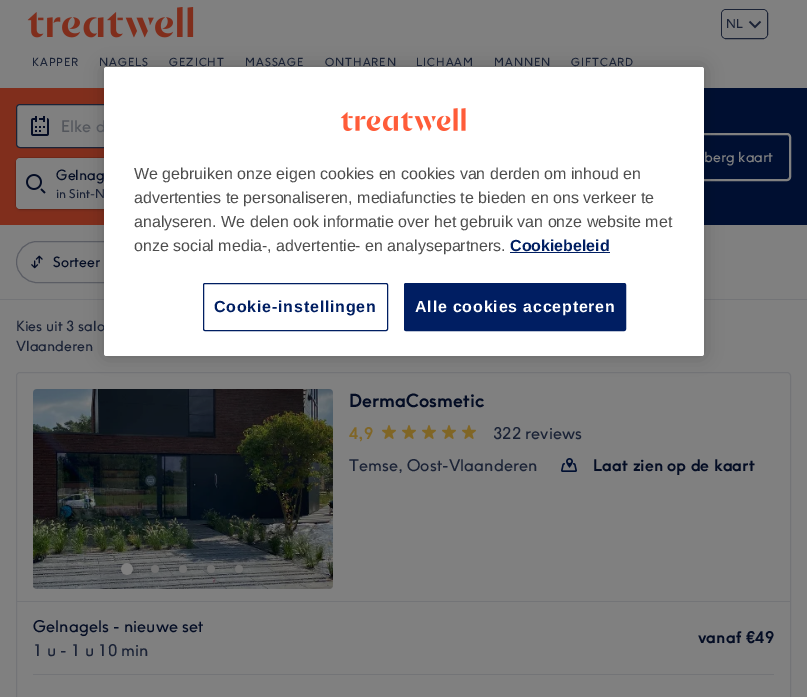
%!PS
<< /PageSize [807 697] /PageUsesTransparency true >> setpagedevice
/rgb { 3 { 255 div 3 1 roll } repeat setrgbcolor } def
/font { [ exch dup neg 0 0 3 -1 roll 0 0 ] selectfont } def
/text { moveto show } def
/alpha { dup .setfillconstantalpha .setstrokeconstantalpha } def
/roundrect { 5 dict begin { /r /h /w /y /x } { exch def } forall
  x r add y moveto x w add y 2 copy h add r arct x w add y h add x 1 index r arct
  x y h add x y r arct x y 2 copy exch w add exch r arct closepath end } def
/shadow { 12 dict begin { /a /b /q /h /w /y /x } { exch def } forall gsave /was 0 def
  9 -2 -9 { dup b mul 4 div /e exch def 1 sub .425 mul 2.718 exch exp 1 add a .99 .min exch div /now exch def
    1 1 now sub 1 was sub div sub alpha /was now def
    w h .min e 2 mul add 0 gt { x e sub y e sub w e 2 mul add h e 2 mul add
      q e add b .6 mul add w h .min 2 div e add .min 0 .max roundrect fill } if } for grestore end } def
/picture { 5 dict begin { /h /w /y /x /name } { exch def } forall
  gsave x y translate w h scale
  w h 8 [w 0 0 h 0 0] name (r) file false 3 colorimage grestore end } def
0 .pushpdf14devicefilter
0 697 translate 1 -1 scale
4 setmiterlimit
128 128 128 rgb
0 0 807 697 rectfill
(img_01.rgb) 27 7 167 31 picture
27 35 54 rgb
721.5 9.5 46 29 4.5 roundrect stroke
128 128 128 rgb
722 10 45 28 4 roundrect fill
(img_02.rgb) 748 20 14 9 picture
0 15 49 rgb
704 88 103 137 rectfill
(img_03.rgb) 0 88 104 137 picture
128 128 128 rgb
16.5 104.5 359 43 3.5 roundrect gsave fill grestore
27 35 54 rgb
stroke
(img_04.rgb) 31 116 18 20 picture
0 0 0 rgb
16 158 360 51 4 0.5 0.4 shadow
16 159 360 51 4 1.5 0.15 shadow
128 128 128 rgb
16 158 360 51 4 roundrect fill
(img_05.rgb) 26 174 20 20 picture
2 setlinewidth
630 134 160 46 3 roundrect stroke
115 116 119 rgb
0 299 807 1 rectfill
91 93 100 rgb
1 setlinewidth
16.5 241.5 117 41 20.5 roundrect stroke
(img_06.rgb) 31 255 12 14 picture
115 116 119 rgb
16.5 372.5 774 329 3.5 roundrect stroke
(img_07.rgb) 33 389 300 200 picture
(img_08.rgb) 118 560 18 18 picture
(img_09.rgb) 148 562 14 14 picture
(img_10.rgb) 176 562 14 14 picture
(img_11.rgb) 204 562 14 13 picture
(img_12.rgb) 232 562 14 14 picture
(img_13.rgb) 382 425 14 14 picture
(img_13.rgb) 402 425 14 14 picture
(img_13.rgb) 422 425 14 14 picture
(img_13.rgb) 442 425 14 14 picture
(img_13.rgb) 462 425 14 14 picture
(img_14.rgb) 561 458 16 14 picture
17 601 773 1 rectfill
33 674 741 1 rectfill
0 0 0 rgb
104 67 600 289 2.5 9 0.2 shadow
/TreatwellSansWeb-Regular 12 font
27 35 54 rgb
(NL) 726 28 text
/TreatwellSansWeb-Regular 11 font
32 66 moveto 1 0 (KAPPER) ashow
99 66 moveto 1 0 (NAGELS) ashow
169 66 moveto 1 0 (GEZICHT) ashow
245 66 moveto 1 0 (MASSAGE) ashow
325 66 moveto 1 0 (ONTHAREN) ashow
416 66 moveto 1 0 (LICHAAM) ashow
494 66 moveto 1 0 (MANNEN) ashow
571 66 moveto 1 0 (GIFTCARD) ashow
/TreatwellSansWeb-Regular 16 font
83 86 92 rgb
(Elke d) 61 132 text
/TreatwellSansWeb-Regular 14 font
4 13 36 rgb
(Gelnag) 56 180 text
/TreatwellSansWeb-Regular 12 font
27 35 54 rgb
(in Sint-N) 56 198 text
/TreatwellSansWeb-Regular 14 font
128 128 128 rgb
(berg kaart) 704 162 text
4 13 36 rgb
(Sorteer) 53 267 text
27 35 54 rgb
(Kies uit 3 salo) 16 331 text
(Vlaanderen) 16 351 text
/TreatwellSansWeb-Bold 18 font
4 13 36 rgb
(DermaCosmetic) 349 407 text
/TreatwellSansWeb-Bold 16 font
128 102 39 rgb
(4,9) 349 439 text
/TreatwellSansWeb-Regular 16 font
27 35 54 rgb
(322 reviews) 493 439 text
(Temse, Oost-Vlaanderen) 349 471 text
/TreatwellSansWeb-Bold 16 font
4 13 36 rgb
(Laat zien op de kaart) 593 471 text
/TreatwellSansWeb-Regular 16 font
(Gelnagels - nieuwe set) 33 632 text
27 35 54 rgb
(1 u - 1 u 10 min) 33 656 text
/TreatwellSansWeb-Bold 16 font
4 13 36 rgb
(vanaf €49) 698 643 text
255 255 255 rgb
104 67 600 289 2.5 roundrect fill
(img_15.rgb) 340 108 126 23 picture
/LiberationSans-Regular 16 font
77 77 77 rgb
(We gebruiken onze eigen cookies en cookies van derden om inhoud en) 134 179 text
(advertenties te personaliseren, mediafuncties te bieden en ons verkeer te) 134 203 text
(analyseren. We delen ook informatie over het gebruik van onze website met) 134 227 text
(onze social media-, advertentie- en analysepartners.) 134 251 text
/LiberationSans-Bold 16 font
0 30 98 rgb
(Cookiebeleid) 510 251 text
510 252 100 1 rectfill
203.5 283.5 184 47 1.5 roundrect stroke
214 312 moveto 0.8 0 (Cookie-instellingen) ashow
404.5 283.5 221 47 1.5 roundrect gsave fill grestore
stroke
255 255 255 rgb
415 312 moveto 0.8 0 (Alle cookies accepteren) ashow
.poppdf14devicefilter showpage
